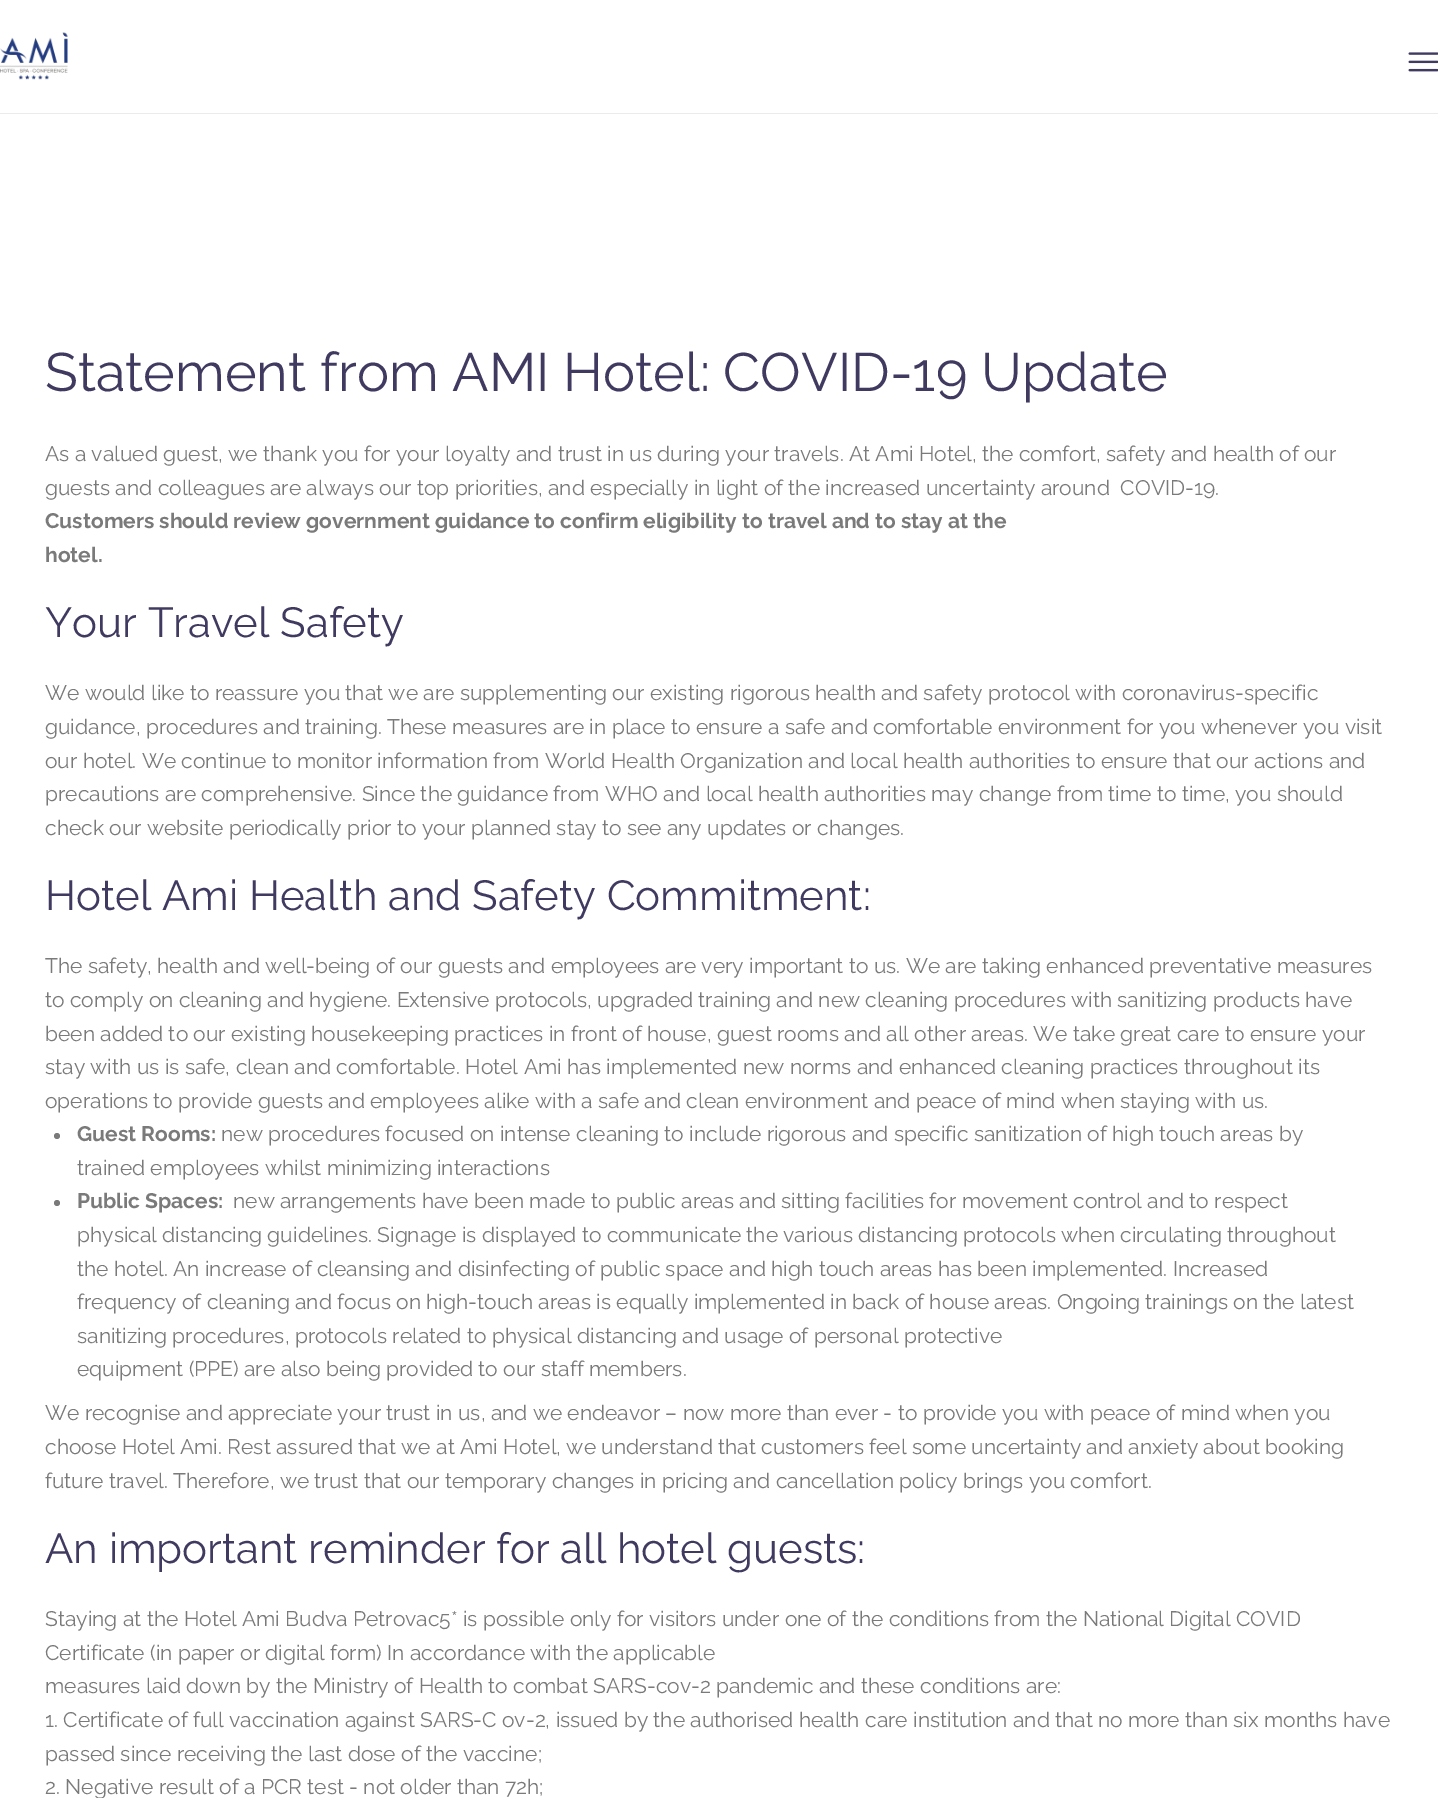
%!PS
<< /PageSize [1438 1798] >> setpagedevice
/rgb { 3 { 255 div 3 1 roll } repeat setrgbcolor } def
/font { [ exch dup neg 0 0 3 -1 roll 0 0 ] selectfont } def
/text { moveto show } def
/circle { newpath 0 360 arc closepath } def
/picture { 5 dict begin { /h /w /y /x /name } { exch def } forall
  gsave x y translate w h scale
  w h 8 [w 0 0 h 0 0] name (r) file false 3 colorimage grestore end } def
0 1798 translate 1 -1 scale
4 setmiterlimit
255 255 255 rgb
0 0 1438 1798 rectfill
235 235 235 rgb
0 112 moveto 0 2 rlineto 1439 0 rlineto 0 -112 rlineto -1 0 rlineto 0 110 rlineto closepath fill
255 255 255 rgb
0 112 1438 1 rectfill
(img_01.rgb) 0 32 68 48 picture
(img_02.rgb) 1408 52 30 20 picture
122 122 122 rgb
57 1136 3 circle fill
57 1203 3 circle fill
/Raleway-Regular 54 font
64 58 96 rgb
(Statement from AMI Hotel: COVID-19 Update) 45 391 text
/Raleway-Regular 21 font
122 122 122 rgb
(As a valued guest, we thank you for your loyalty and trust in us during your travels. At Ami Hotel, the comfort, safety and health of our) 45 461 text
(guests and colleagues are always our top priorities, and especially in light of the increased uncertainty around  COVID-19.) 45 495 text
/Raleway-Bold 21 font
(Customers should review government guidance to confirm eligibility to travel and to stay at the) 45 528 text
(hotel.) 45 562 text
/Raleway-Regular 42 font
64 58 96 rgb
(Your Travel Safety) 45 637 text
/Raleway-Regular 21 font
122 122 122 rgb
(We would like to reassure you that we are supplementing our existing rigorous health and safety protocol with coronavirus-specific) 45 700 text
(guidance, procedures and training. These measures are in place to ensure a safe and comfortable environment for you whenever you visit) 45 734 text
(our hotel. We continue to monitor information from World Health Organization and local health authorities to ensure that our actions and) 45 768 text
(precautions are comprehensive. Since the guidance from WHO and local health authorities may change from time to time, you should) 45 801 text
(check our website periodically prior to your planned stay to see any updates or changes.) 45 835 text
/Raleway-Regular 42 font
64 58 96 rgb
(Hotel Ami Health and Safety Commitment:) 45 910 text
/Raleway-Regular 21 font
122 122 122 rgb
(The safety, health and well-being of our guests and employees are very important to us. We are taking enhanced preventative measures) 45 973 text
(to comply on cleaning and hygiene. Extensive protocols, upgraded training and new cleaning procedures with sanitizing products have) 45 1007 text
(been added to our existing housekeeping practices in front of house, guest rooms and all other areas. We take great care to ensure your) 45 1041 text
(stay with us is safe, clean and comfortable. Hotel Ami has implemented new norms and enhanced cleaning practices throughout its) 45 1074 text
(operations to provide guests and employees alike with a safe and clean environment and peace of mind when staying with us.) 45 1108 text
/Raleway-Bold 21 font
(Guest Rooms:) 77 1141 text
/Raleway-Regular 21 font
(new procedures focused on intense cleaning to include rigorous and specific sanitization of high touch areas by) 221 1141 text
(trained employees whilst minimizing interactions) 77 1175 text
/Raleway-Bold 21 font
(Public Spaces:) 77 1208 text
/Raleway-Regular 21 font
(new arrangements have been made to public areas and sitting facilities for movement control and to respect) 233 1208 text
(physical distancing guidelines. Signage is displayed to communicate the various distancing protocols when circulating throughout) 77 1242 text
(the hotel. An increase of cleansing and disinfecting of public space and high touch areas has been implemented. Increased) 77 1276 text
(frequency of cleaning and focus on high-touch areas is equally implemented in back of house areas. Ongoing trainings on the latest) 77 1309 text
(sanitizing procedures, protocols related to physical distancing and usage of personal protective) 77 1343 text
(equipment \(PPE\) are also being provided to our staff members.) 77 1376 text
(We recognise and appreciate your trust in us, and we endeavor – now more than ever - to provide you with peace of mind when you) 45 1420 text
(choose Hotel Ami. Rest assured that we at Ami Hotel, we understand that customers feel some uncertainty and anxiety about booking) 45 1454 text
(future travel. Therefore, we trust that our temporary changes in pricing and cancellation policy brings you comfort.) 45 1488 text
/Raleway-Regular 42 font
64 58 96 rgb
(An important reminder for all hotel guests:) 45 1563 text
/Raleway-Regular 21 font
122 122 122 rgb
(Staying at the Hotel Ami Budva Petrovac5* is possible only for visitors under one of the conditions from the National Digital COVID) 45 1626 text
(Certificate \(in paper or digital form\) In accordance with the applicable) 45 1660 text
(measures laid down by the Ministry of Health to combat SARS-cov-2 pandemic and these conditions are:) 45 1693 text
(1. Certificate of full vaccination against SARS-C ov-2, issued by the authorised health care institution and that no more than six months have) 45 1727 text
(passed since receiving the last dose of the vaccine;) 45 1761 text
(2. Negative result of a PCR test - not older than 72h;) 45 1794 text
showpage
